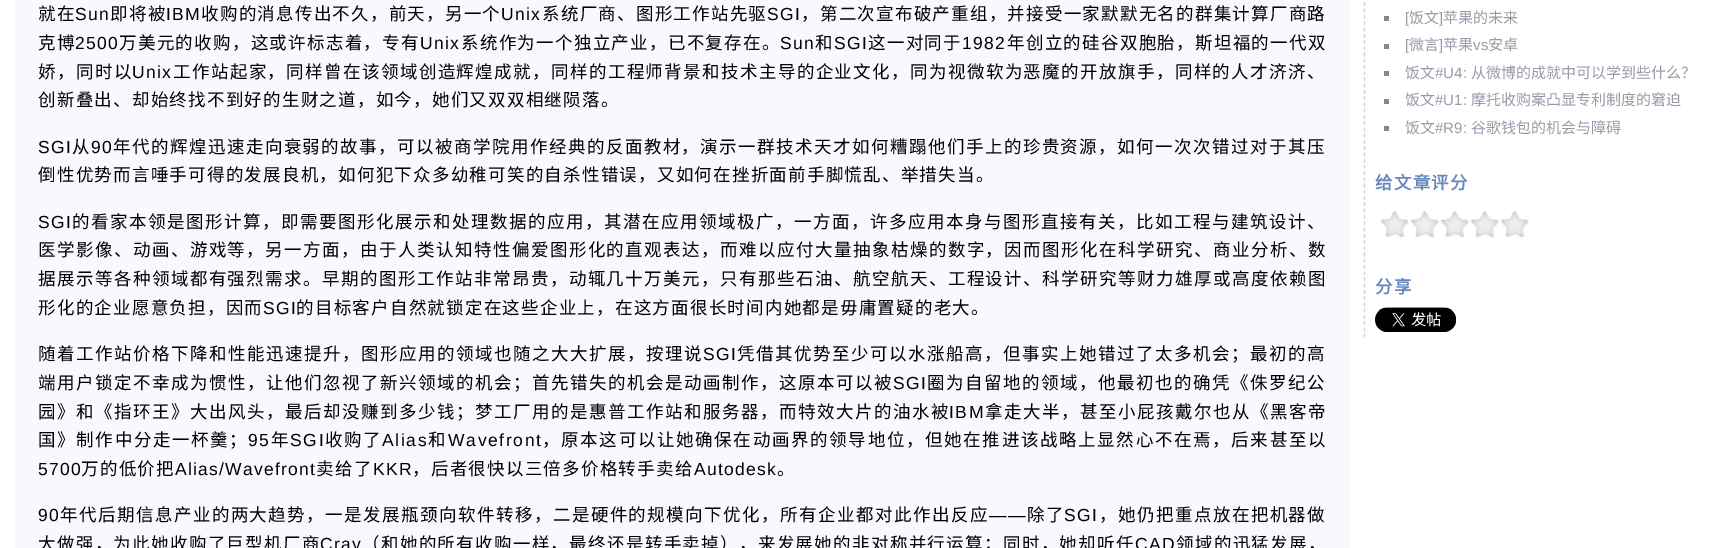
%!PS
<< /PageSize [1709 548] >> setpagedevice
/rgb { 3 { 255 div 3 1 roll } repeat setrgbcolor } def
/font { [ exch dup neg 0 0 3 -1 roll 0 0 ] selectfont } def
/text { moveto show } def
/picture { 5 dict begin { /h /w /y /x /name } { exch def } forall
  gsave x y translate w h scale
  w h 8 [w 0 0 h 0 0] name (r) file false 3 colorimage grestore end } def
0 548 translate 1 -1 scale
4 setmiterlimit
255 255 255 rgb
0 0 1709 548 rectfill
248 248 255 rgb
15 0 1334 548 rectfill
211 211 211 rgb
1.2 setlinewidth
[3.75 2.5] 0 setdash
1364.5 -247.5 moveto 0 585 rlineto stroke
136 136 136 rgb
1384 16 5 5 rectfill
1384 44 5 5 rectfill
1384 71 5 5 rectfill
1384 99 5 5 rectfill
1384 126 5 5 rectfill
(img_01.rgb) 1381 210 148 28 picture
(img_02.rgb) 1375 307 82 25 picture
/NotoSansCJKSC-Regular 17.5 font
0 0 0 rgb
38 20 moveto 1.25 0 (就在) ashow
/LiberationSans-Regular 17.5 font
75 20 moveto 1.25 0 (Sun) ashow
/NotoSansCJKSC-Regular 17.5 font
110 20 moveto 1.25 0 (即将被) ashow
/LiberationSans-Regular 17.5 font
166 20 moveto 1.25 0 (IBM) ashow
/NotoSansCJKSC-Regular 17.5 font
201 20 moveto 1.25 0 (收购的消息传出不久，前天，另一个) ashow
/LiberationSans-Regular 17.5 font
501 20 moveto 1.25 0 (Unix) ashow
/NotoSansCJKSC-Regular 17.5 font
542 20 moveto 1.25 0 (系统厂商、图形工作站先驱) ashow
/LiberationSans-Regular 17.5 font
767 20 moveto 1.25 0 (SGI) ashow
/NotoSansCJKSC-Regular 17.5 font
801 20 moveto 1.25 0 (，第二次宣布破产重组，并接受一家默默无名的群集计算厂商路) ashow
38 49 moveto 1.3 0 (克博) ashow
/LiberationSans-Regular 17.5 font
75 49 moveto 1.3 0 (2500) ashow
/NotoSansCJKSC-Regular 17.5 font
119 49 moveto 1.3 0 (万美元的收购，这或许标志着，专有) ashow
/LiberationSans-Regular 17.5 font
420 49 moveto 1.3 0 (Unix) ashow
/NotoSansCJKSC-Regular 17.5 font
461 49 moveto 1.3 0 (系统作为一个独立产业，已不复存在。) ashow
/LiberationSans-Regular 17.5 font
780 49 moveto 1.3 0 (Sun) ashow
/NotoSansCJKSC-Regular 17.5 font
815 49 moveto 1.3 0 (和) ashow
/LiberationSans-Regular 17.5 font
834 49 moveto 1.3 0 (SGI) ashow
/NotoSansCJKSC-Regular 17.5 font
868 49 moveto 1.3 0 (这一对同于) ashow
/LiberationSans-Regular 17.5 font
962 49 moveto 1.3 0 (1982) ashow
/NotoSansCJKSC-Regular 17.5 font
1007 49 moveto 1.3 0 (年创立的硅谷双胞胎，斯坦福的一代双) ashow
38 78 moveto 1.4 0 (娇，同时以) ashow
/LiberationSans-Regular 17.5 font
132 78 moveto 1.4 0 (Unix) ashow
/NotoSansCJKSC-Regular 17.5 font
173 78 moveto 1.4 0 (工作站起家，同样曾在该领域创造辉煌成就，同样的工程师背景和技术主导的企业文化，同为视微软为恶魔的开放旗手，同样的人才济济、) ashow
38 106 moveto 1.25 0 (创新叠出、却始终找不到好的生财之道，如今，她们又双双相继陨落。) ashow
/LiberationSans-Regular 17.5 font
38 153 moveto 1.45 0 (SGI) ashow
/NotoSansCJKSC-Regular 17.5 font
72 153 moveto 1.45 0 (从) ashow
/LiberationSans-Regular 17.5 font
91 153 moveto 1.45 0 (90) ashow
/NotoSansCJKSC-Regular 17.5 font
113 153 moveto 1.45 0 (年代的辉煌迅速走向衰弱的故事，可以被商学院用作经典的反面教材，演示一群技术天才如何糟蹋他们手上的珍贵资源，如何一次次错过对于其压) ashow
38 181 moveto 1.25 0 (倒性优势而言唾手可得的发展良机，如何犯下众多幼稚可笑的自杀性错误，又如何在挫折面前手脚慌乱、举措失当。) ashow
/LiberationSans-Regular 17.5 font
38 228 moveto 1.5 0 (SGI) ashow
/NotoSansCJKSC-Regular 17.5 font
72 228 moveto 1.5 0 (的看家本领是图形计算，即需要图形化展示和处理数据的应用，其潜在应用领域极广，一方面，许多应用本身与图形直接有关，比如工程与建筑设计、) ashow
38 256 moveto 1.45 0 (医学影像、动画、游戏等，另一方面，由于人类认知特性偏爱图形化的直观表达，而难以应付大量抽象枯燥的数字，因而图形化在科学研究、商业分析、数) ashow
38 285 moveto 1.45 0 (据展示等各种领域都有强烈需求。早期的图形工作站非常昂贵，动辄几十万美元，只有那些石油、航空航天、工程设计、科学研究等财力雄厚或高度依赖图) ashow
38 314 moveto 1.25 0 (形化的企业愿意负担，因而) ashow
/LiberationSans-Regular 17.5 font
263 314 moveto 1.25 0 (SGI) ashow
/NotoSansCJKSC-Regular 17.5 font
296 314 moveto 1.25 0 (的目标客户自然就锁定在这些企业上，在这方面很长时间内她都是毋庸置疑的老大。) ashow
38 360 moveto 1.5 0 (随着工作站价格下降和性能迅速提升，图形应用的领域也随之大大扩展，按理说) ashow
/LiberationSans-Regular 17.5 font
703 360 moveto 1.5 0 (SGI) ashow
/NotoSansCJKSC-Regular 17.5 font
737 360 moveto 1.5 0 (凭借其优势至少可以水涨船高，但事实上她错过了太多机会；最初的高) ashow
38 389 moveto 1.5 0 (端用户锁定不幸成为惯性，让他们忽视了新兴领域的机会；首先错失的机会是动画制作，这原本可以被) ashow
/LiberationSans-Regular 17.5 font
893 389 moveto 1.5 0 (SGI) ashow
/NotoSansCJKSC-Regular 17.5 font
927 389 moveto 1.5 0 (圈为自留地的领域，他最初也的确凭《侏罗纪公) ashow
38 418 moveto 1.5 0 (园》和《指环王》大出风头，最后却没赚到多少钱；梦工厂用的是惠普工作站和服务器，而特效大片的油水被) ashow
/LiberationSans-Regular 17.5 font
949 418 moveto 1.5 0 (IBM) ashow
/NotoSansCJKSC-Regular 17.5 font
985 418 moveto 1.5 0 (拿走大半，甚至小屁孩戴尔也从《黑客帝) ashow
38 446 moveto 1.65 0 (国》制作中分走一杯羹；) ashow
/LiberationSans-Regular 17.5 font
248 446 moveto 1.65 0 (95) ashow
/NotoSansCJKSC-Regular 17.5 font
271 446 moveto 1.65 0 (年) ashow
/LiberationSans-Regular 17.5 font
290 446 moveto 1.65 0 (SGI) ashow
/NotoSansCJKSC-Regular 17.5 font
325 446 moveto 1.65 0 (收购了) ashow
/LiberationSans-Regular 17.5 font
382 446 moveto 1.65 0 (Alias) ashow
/NotoSansCJKSC-Regular 17.5 font
428 446 moveto 1.65 0 (和) ashow
/LiberationSans-Regular 17.5 font
448 446 moveto 1.65 0 (Wavefront) ashow
/NotoSansCJKSC-Regular 17.5 font
542 446 moveto 1.65 0 (，原本这可以让她确保在动画界的领导地位，但她在推进该战略上显然心不在焉，后来甚至以) ashow
/LiberationSans-Regular 17.5 font
38 475 moveto 1.25 0 (5700) ashow
/NotoSansCJKSC-Regular 17.5 font
81 475 moveto 1.25 0 (万的低价把) ashow
/LiberationSans-Regular 17.5 font
175 475 moveto 1.25 0 (Alias/Wavefront) ashow
/NotoSansCJKSC-Regular 17.5 font
316 475 moveto 1.25 0 (卖给了) ashow
/LiberationSans-Regular 17.5 font
373 475 moveto 1.25 0 (KKR) ashow
/NotoSansCJKSC-Regular 17.5 font
412 475 moveto 1.25 0 (，后者很快以三倍多价格转手卖给) ashow
/LiberationSans-Regular 17.5 font
694 475 moveto 1.25 0 (Autodesk) ashow
/NotoSansCJKSC-Regular 17.5 font
777 475 moveto 1.25 0 (。) ashow
/LiberationSans-Regular 17.5 font
38 521 moveto 1.45 0 (90) ashow
/NotoSansCJKSC-Regular 17.5 font
60 521 moveto 1.45 0 (年代后期信息产业的两大趋势，一是发展瓶颈向软件转移，二是硬件的规模向下优化，所有企业都对此作出反应) ashow
/LiberationSans-Regular 17.5 font
989 521 moveto 1.45 0 (——) ashow
/NotoSansCJKSC-Regular 17.5 font
1027 521 moveto 1.45 0 (除了) ashow
/LiberationSans-Regular 17.5 font
1064 521 moveto 1.45 0 (SGI) ashow
/NotoSansCJKSC-Regular 17.5 font
1099 521 moveto 1.45 0 (，她仍把重点放在把机器做) ashow
38 550 moveto 1.35 0 (大做强，为此她收购了巨型机厂商) ashow
/LiberationSans-Regular 17.5 font
320 550 moveto 1.35 0 (Cray) ashow
/NotoSansCJKSC-Regular 17.5 font
362 550 moveto 1.35 0 (（和她的所有收购一样，最终还是转手卖掉），来发展她的非对称并行运算；同时，她却听任) ashow
/LiberationSans-Regular 17.5 font
1135 550 moveto 1.35 0 (CAD) ashow
/NotoSansCJKSC-Regular 17.5 font
1176 550 moveto 1.35 0 (领域的迅猛发展，) ashow
/LiberationSans-Regular 15 font
153 153 170 rgb
([) 1405 23 text
/NotoSansCJKSC-Regular 15 font
(饭文) 1409 23 text
/LiberationSans-Regular 15 font
(]) 1439 23 text
/NotoSansCJKSC-Regular 15 font
(苹果的未来) 1443 23 text
/LiberationSans-Regular 15 font
([) 1405 50 text
/NotoSansCJKSC-Regular 15 font
(微言) 1409 50 text
/LiberationSans-Regular 15 font
(]) 1439 50 text
/NotoSansCJKSC-Regular 15 font
(苹果) 1443 50 text
/LiberationSans-Regular 15 font
(vs) 1473 50 text
/NotoSansCJKSC-Regular 15 font
(安卓) 1488 50 text
(饭文) 1405 78 text
/LiberationSans-Regular 15 font
(#U4:) 1435 78 text
/NotoSansCJKSC-Regular 15 font
(从微博的成就中可以学到些什么？) 1471 78 text
(饭文) 1405 105 text
/LiberationSans-Regular 15 font
(#U1:) 1435 105 text
/NotoSansCJKSC-Regular 15 font
(摩托收购案凸显专利制度的窘迫) 1471 105 text
(饭文) 1405 133 text
/LiberationSans-Regular 15 font
(#R9:) 1435 133 text
/NotoSansCJKSC-Regular 15 font
(谷歌钱包的机会与障碍) 1471 133 text
/NotoSansCJKSC-Bold 17.5 font
102 136 187 rgb
1375 189 moveto 1.25 0 (给文章评分) ashow
1375 293 moveto 1.25 0 (分享) ashow
showpage
